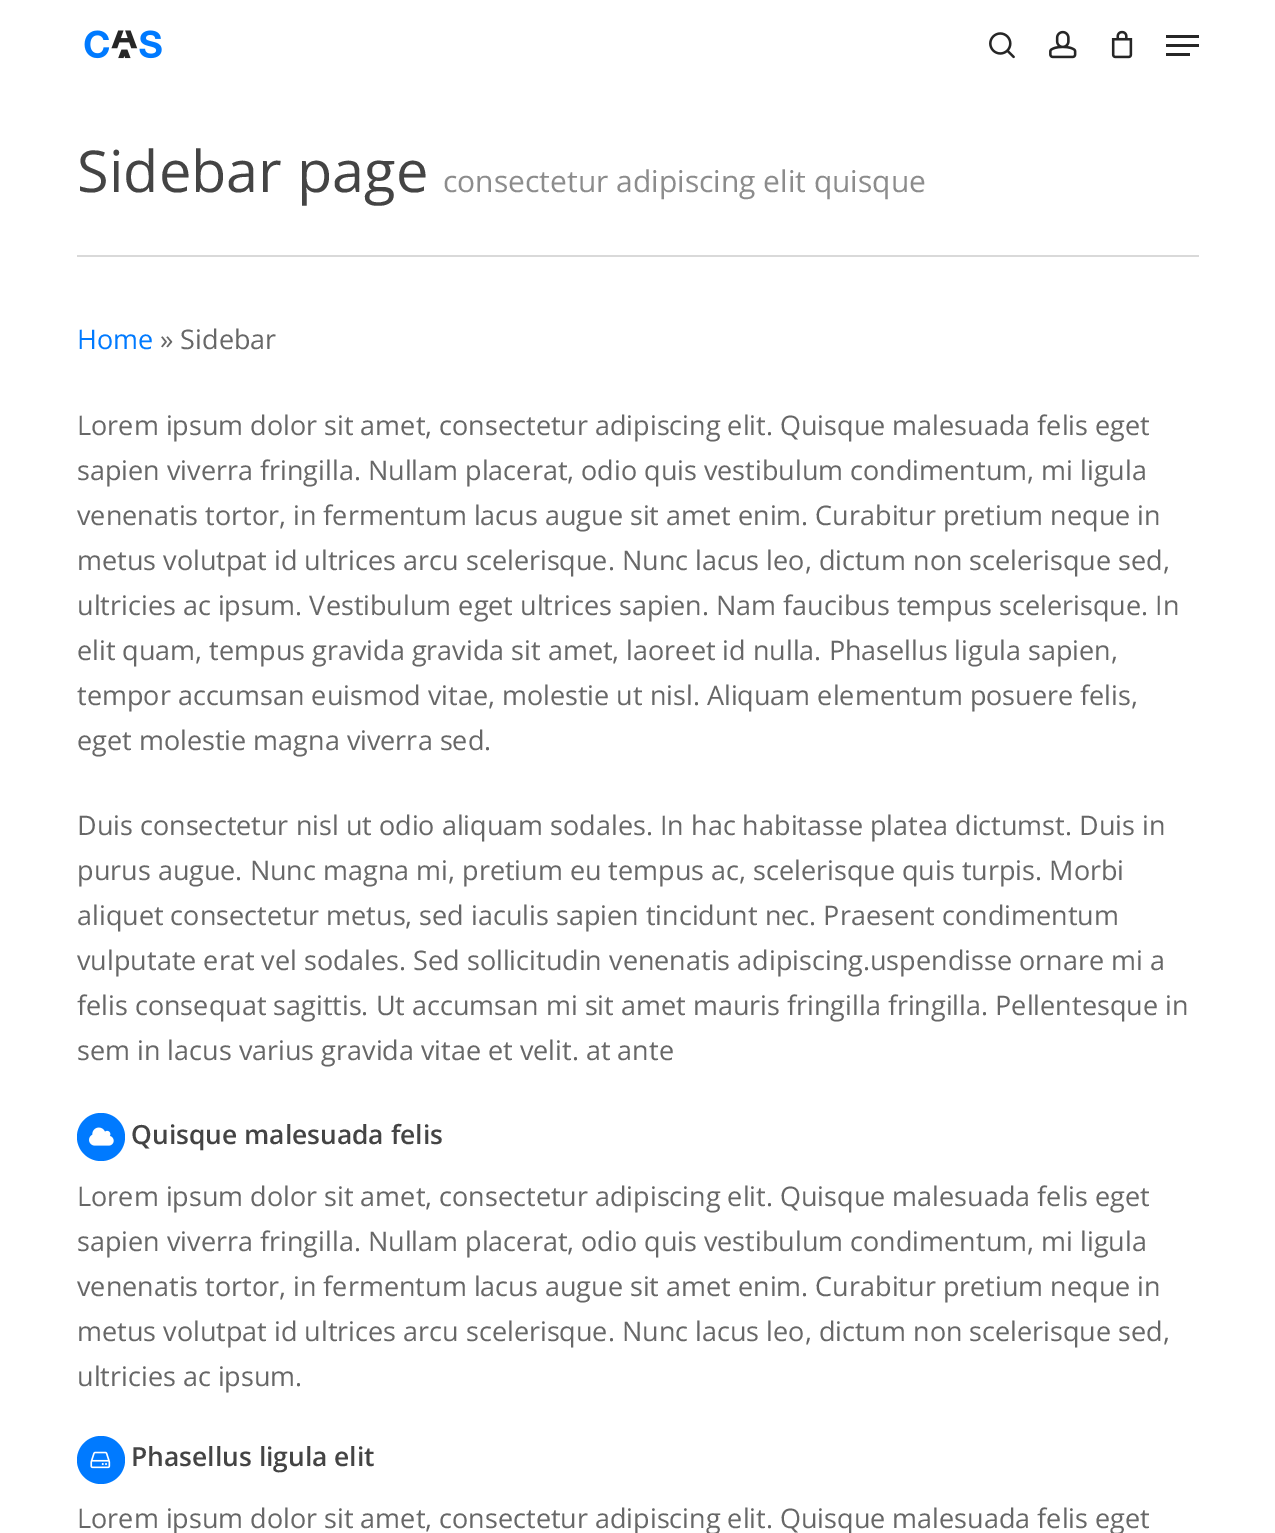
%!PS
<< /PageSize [1275 1533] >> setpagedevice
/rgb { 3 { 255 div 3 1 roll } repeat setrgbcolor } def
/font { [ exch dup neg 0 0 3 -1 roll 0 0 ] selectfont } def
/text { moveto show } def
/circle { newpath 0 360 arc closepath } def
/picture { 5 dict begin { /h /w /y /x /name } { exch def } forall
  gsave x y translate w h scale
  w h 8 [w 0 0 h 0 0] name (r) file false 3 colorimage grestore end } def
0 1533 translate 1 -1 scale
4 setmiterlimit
255 255 255 rgb
0 0 1275 1533 rectfill
(img_01.rgb) 84 30 78 29 picture
(img_02.rgb) 989 32 26 27 picture
(img_03.rgb) 1049 30 28 29 picture
(img_04.rgb) 1111 30 22 29 picture
38 38 38 rgb
1166 35 33 3 rectfill
1166 53 24 3 rectfill
1166 44 33 3 rectfill
217 217 217 rgb
77 255 1122 2 rectfill
0 122 255 rgb
101 1137 24 circle fill
(img_05.rgb) 89 1127 25 19 picture
101 1460 24 circle fill
(img_06.rgb) 90 1451 21 18 picture
/OpenSans-Regular 57.75 font
68 68 68 rgb
(Sidebar page) 77 192 text
/OpenSans-Regular 30 font
140 140 140 rgb
(consectetur adipiscing elit quisque) 443 192 text
/OpenSans-Regular 27 font
0 122 255 rgb
(Home) 77 349 text
103 103 103 rgb
(» Sidebar) 160 349 text
(Lorem ipsum dolor sit amet, consectetur adipiscing elit. Quisque malesuada felis eget) 77 435 text
(sapien viverra fringilla. Nullam placerat, odio quis vestibulum condimentum, mi ligula) 77 480 text
(venenatis tortor, in fermentum lacus augue sit amet enim. Curabitur pretium neque in) 77 525 text
(metus volutpat id ultrices arcu scelerisque. Nunc lacus leo, dictum non scelerisque sed,) 77 570 text
(ultricies ac ipsum. Vestibulum eget ultrices sapien. Nam faucibus tempus scelerisque. In) 77 615 text
(elit quam, tempus gravida gravida sit amet, laoreet id nulla. Phasellus ligula sapien,) 77 660 text
(tempor accumsan euismod vitae, molestie ut nisl. Aliquam elementum posuere felis,) 77 705 text
(eget molestie magna viverra sed.) 77 750 text
(Duis consectetur nisl ut odio aliquam sodales. In hac habitasse platea dictumst. Duis in) 77 835 text
(purus augue. Nunc magna mi, pretium eu tempus ac, scelerisque quis turpis. Morbi) 77 880 text
(aliquet consectetur metus, sed iaculis sapien tincidunt nec. Praesent condimentum) 77 925 text
(vulputate erat vel sodales. Sed sollicitudin venenatis adipiscing.uspendisse ornare mi a) 77 970 text
(felis consequat sagittis. Ut accumsan mi sit amet mauris fringilla fringilla. Pellentesque in) 77 1015 text
(sem in lacus varius gravida vitae et velit. at ante) 77 1060 text
/OpenSans-SemiBold 26.4 font
68 68 68 rgb
(Quisque malesuada felis) 131 1144 text
/OpenSans-Regular 27 font
103 103 103 rgb
(Lorem ipsum dolor sit amet, consectetur adipiscing elit. Quisque malesuada felis eget) 77 1206 text
(sapien viverra fringilla. Nullam placerat, odio quis vestibulum condimentum, mi ligula) 77 1251 text
(venenatis tortor, in fermentum lacus augue sit amet enim. Curabitur pretium neque in) 77 1296 text
(metus volutpat id ultrices arcu scelerisque. Nunc lacus leo, dictum non scelerisque sed,) 77 1341 text
(ultricies ac ipsum.) 77 1386 text
/OpenSans-SemiBold 26.4 font
68 68 68 rgb
(Phasellus ligula elit) 131 1466 text
/OpenSans-Regular 27 font
103 103 103 rgb
(Lorem ipsum dolor sit amet, consectetur adipiscing elit. Quisque malesuada felis eget) 77 1528 text
showpage
